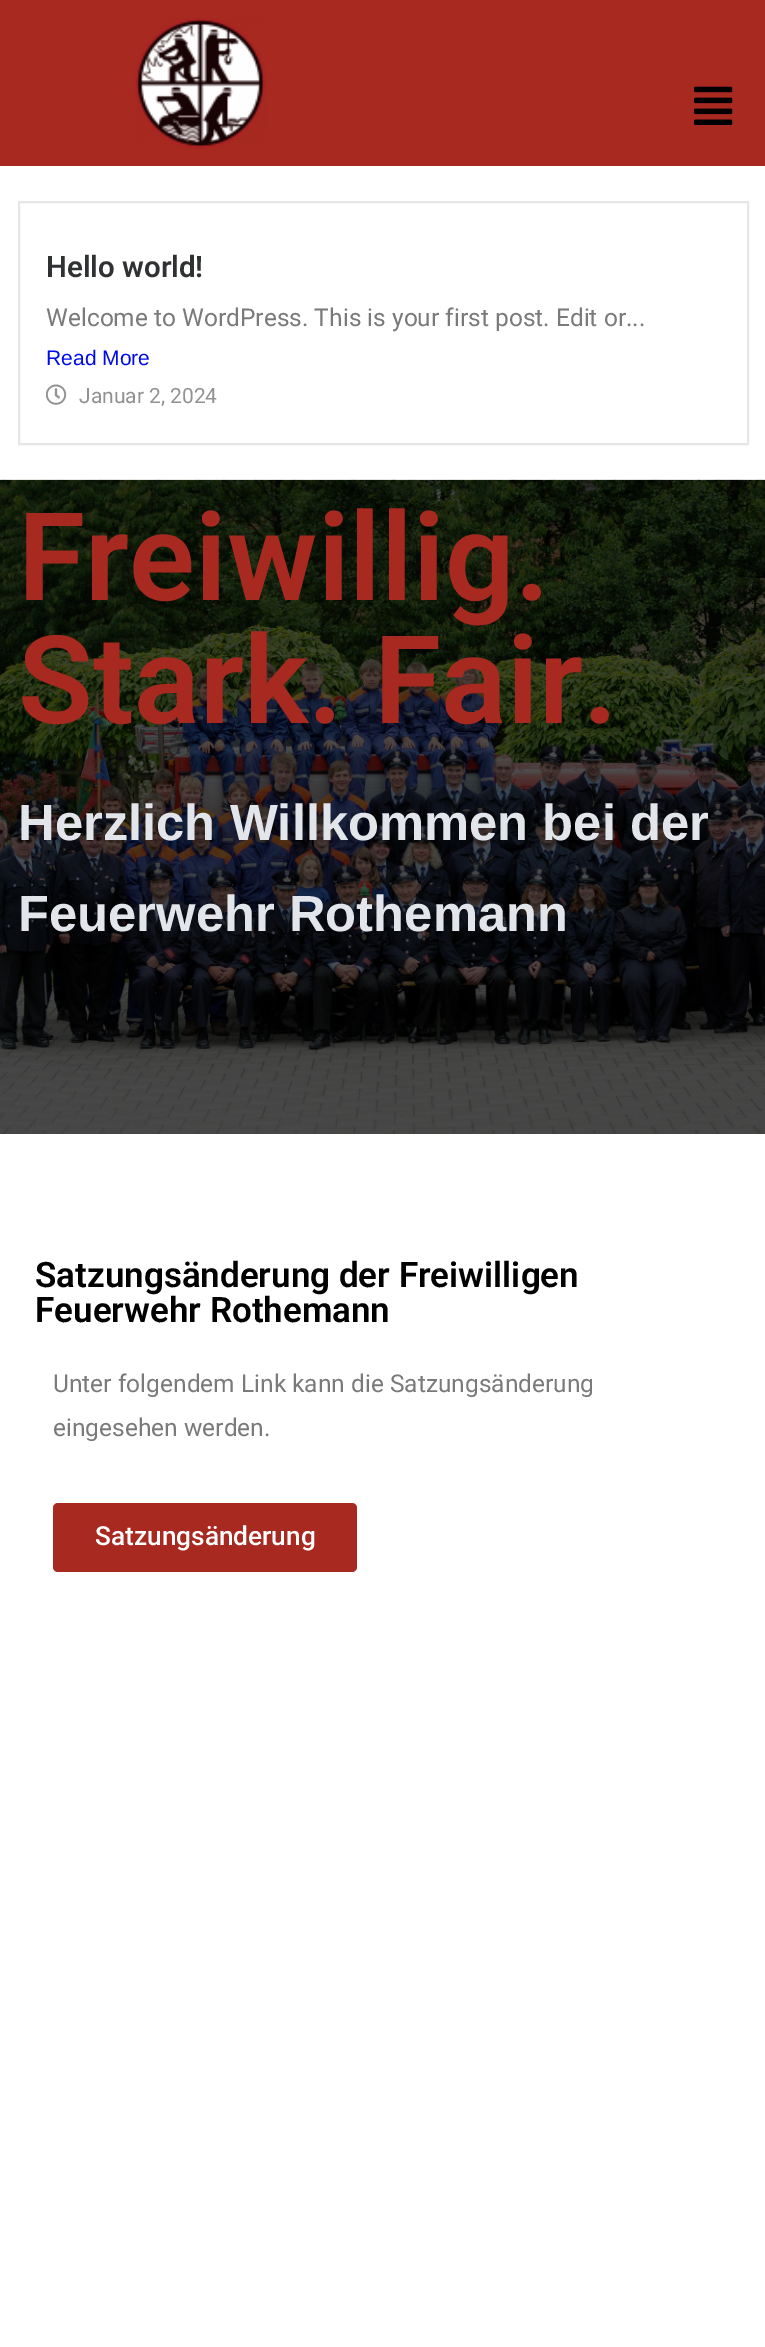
%!PS
<< /PageSize [765 2347] >> setpagedevice
/rgb { 3 { 255 div 3 1 roll } repeat setrgbcolor } def
/font { [ exch dup neg 0 0 3 -1 roll 0 0 ] selectfont } def
/text { moveto show } def
/roundrect { 5 dict begin { /r /h /w /y /x } { exch def } forall
  x r add y moveto x w add y 2 copy h add r arct x w add y h add x 1 index r arct
  x y h add x y r arct x y 2 copy exch w add exch r arct closepath end } def
/picture { 5 dict begin { /h /w /y /x /name } { exch def } forall
  gsave x y translate w h scale
  w h 8 [w 0 0 h 0 0] name (r) file false 3 colorimage grestore end } def
0 2347 translate 1 -1 scale
4 setmiterlimit
255 255 255 rgb
0 0 765 2347 rectfill
167 41 32 rgb
0 0 765 166 rectfill
(img_01.rgb) 135 18 131 131 picture
(img_02.rgb) 694 86 39 39 picture
230 230 230 rgb
2 setlinewidth
19 202 729 242 rectstroke
(img_03.rgb) 46 384 21 21 picture
(img_04.rgb) 0 479 765 655 picture
167 41 32 rgb
53 1503 304 69 5 roundrect fill
/Roboto-SemiBold 29.5 font
48 49 51 rgb
(Hello world!) 46 277 text
/Roboto-Regular 24.5 font
122 122 122 rgb
(Welcome to WordPress. This is your first post. Edit or...) 46 326 text
/LiberationSans-Regular 21 font
0 11 236 rgb
(Read More) 46 365 text
/Roboto-Regular 21 font
146 146 146 rgb
(Januar 2, 2024) 79 403 text
/Roboto-SemiBold 122.5 font
167 41 32 rgb
(Freiwillig.) 18 600 text
(Stark. Fair.) 18 723 text
/LiberationSans-Bold 50.75 font
226 230 235 rgb
(Herzlich Willkommen bei der) 18 840 text
(Feuerwehr Rothemann) 18 931 text
/Roboto-SemiBold 35 font
0 0 0 rgb
(Satzungsänderung der Freiwilligen) 35 1287 text
(Feuerwehr Rothemann) 35 1322 text
/Roboto-Regular 24.5 font
122 122 122 rgb
(Unter folgendem Link kann die Satzungsänderung) 53 1392 text
(eingesehen werden.) 53 1436 text
/Roboto-Medium 26.25 font
255 255 255 rgb
(Satzungsänderung) 95 1545 text
showpage
